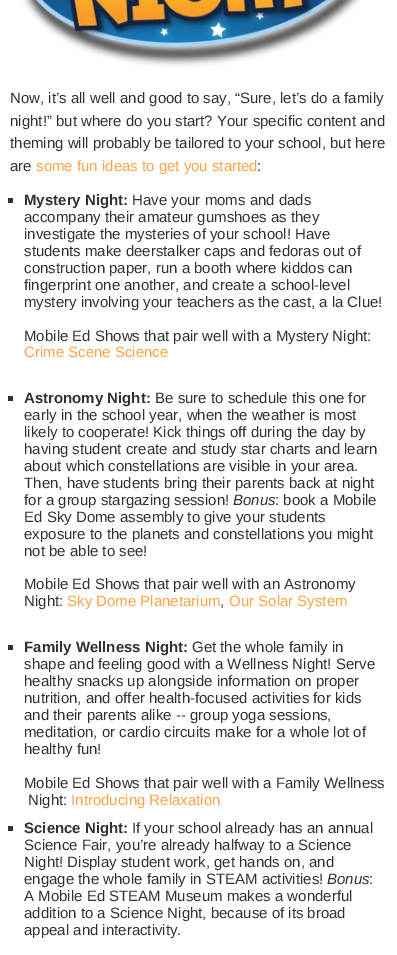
%!PS
<< /PageSize [397 955] >> setpagedevice
/rgb { 3 { 255 div 3 1 roll } repeat setrgbcolor } def
/font { [ exch dup neg 0 0 3 -1 roll 0 0 ] selectfont } def
/text { moveto show } def
/picture { 5 dict begin { /h /w /y /x /name } { exch def } forall
  gsave x y translate w h scale
  w h 8 [w 0 0 h 0 0] name (r) file false 3 colorimage grestore end } def
0 955 translate 1 -1 scale
4 setmiterlimit
255 255 255 rgb
0 0 397 955 rectfill
(img_01.rgb) 22 0 338 67 picture
46 50 51 rgb
8 198 5 5 rectfill
8 396 5 5 rectfill
8 645 5 5 rectfill
8 826 5 5 rectfill
/LiberationSans-Regular 15 font
(Now, it’s all well and good to say, “Sure, let’s do a family) 10 103 text
(night!” but where do you start? Your specific content and) 10 126 text
(theming will probably be tailored to your school, but here) 10 148 text
(are) 10 171 text
255 163 70 rgb
(some fun ideas to get you started) 36 171 text
46 50 51 rgb
(:) 257 171 text
/LiberationSans-Bold 15 font
(Mystery Night:) 24 205 text
/LiberationSans-Regular 15 font
(Have your moms and dads) 132 205 text
(accompany their amateur gumshoes as they) 24 222 text
(investigate the mysteries of your school! Have) 24 239 text
(students make deerstalker caps and fedoras out of) 24 256 text
(construction paper, run a booth where kiddos can) 24 273 text
(fingerprint one another, and create a school-level) 24 290 text
(mystery involving your teachers as the cast, a la Clue!) 24 307 text
(Mobile Ed Shows that pair well with a Mystery Night:) 24 341 text
255 163 70 rgb
(Crime Scene Science) 24 357 text
/LiberationSans-Bold 15 font
46 50 51 rgb
(Astronomy Night:) 24 403 text
/LiberationSans-Regular 15 font
(Be sure to schedule this one for) 155 403 text
(early in the school year, when the weather is most) 24 420 text
(likely to cooperate! Kick things off during the day by) 24 437 text
(having student create and study star charts and learn) 24 454 text
(about which constellations are visible in your area.) 24 471 text
(Then, have students bring their parents back at night) 24 488 text
(for a group stargazing session!) 24 505 text
/LiberationSans-Italic 15 font
(Bonus) 233 505 text
/LiberationSans-Regular 15 font
(: book a Mobile) 275 505 text
(Ed Sky Dome assembly to give your students) 24 522 text
(exposure to the planets and constellations you might) 24 539 text
(not be able to see!) 24 556 text
(Mobile Ed Shows that pair well with an Astronomy) 24 589 text
(Night:) 24 606 text
255 163 70 rgb
(Sky Dome Planetarium) 67 606 text
46 50 51 rgb
(,) 220 606 text
255 163 70 rgb
(Our Solar System) 229 606 text
/LiberationSans-Bold 15 font
46 50 51 rgb
(Family Wellness Night:) 24 652 text
/LiberationSans-Regular 15 font
(Get the whole family in) 192 652 text
(shape and feeling good with a Wellness Night! Serve) 24 669 text
(healthy snacks up alongside information on proper) 24 686 text
(nutrition, and offer health-focused activities for kids) 24 703 text
(and their parents alike -- group yoga sessions,) 24 720 text
(meditation, or cardio circuits make for a whole lot of) 24 737 text
(healthy fun!) 24 754 text
(Mobile Ed Shows that pair well with a Family Wellness) 24 788 text
(Night:) 28 805 text
255 163 70 rgb
(Introducing Relaxation) 71 805 text
/LiberationSans-Bold 15 font
46 50 51 rgb
(Science Night:) 24 833 text
/LiberationSans-Regular 15 font
(If your school already has an annual) 132 833 text
(Science Fair, you’re already halfway to a Science) 24 850 text
(Night! Display student work, get hands on, and) 24 867 text
(engage the whole family in STEAM activities!) 24 884 text
/LiberationSans-Italic 15 font
(Bonus) 327 884 text
/LiberationSans-Regular 15 font
(:) 369 884 text
(A Mobile Ed STEAM Museum makes a wonderful) 24 901 text
(addition to a Science Night, because of its broad) 24 918 text
(appeal and interactivity.) 24 935 text
showpage
